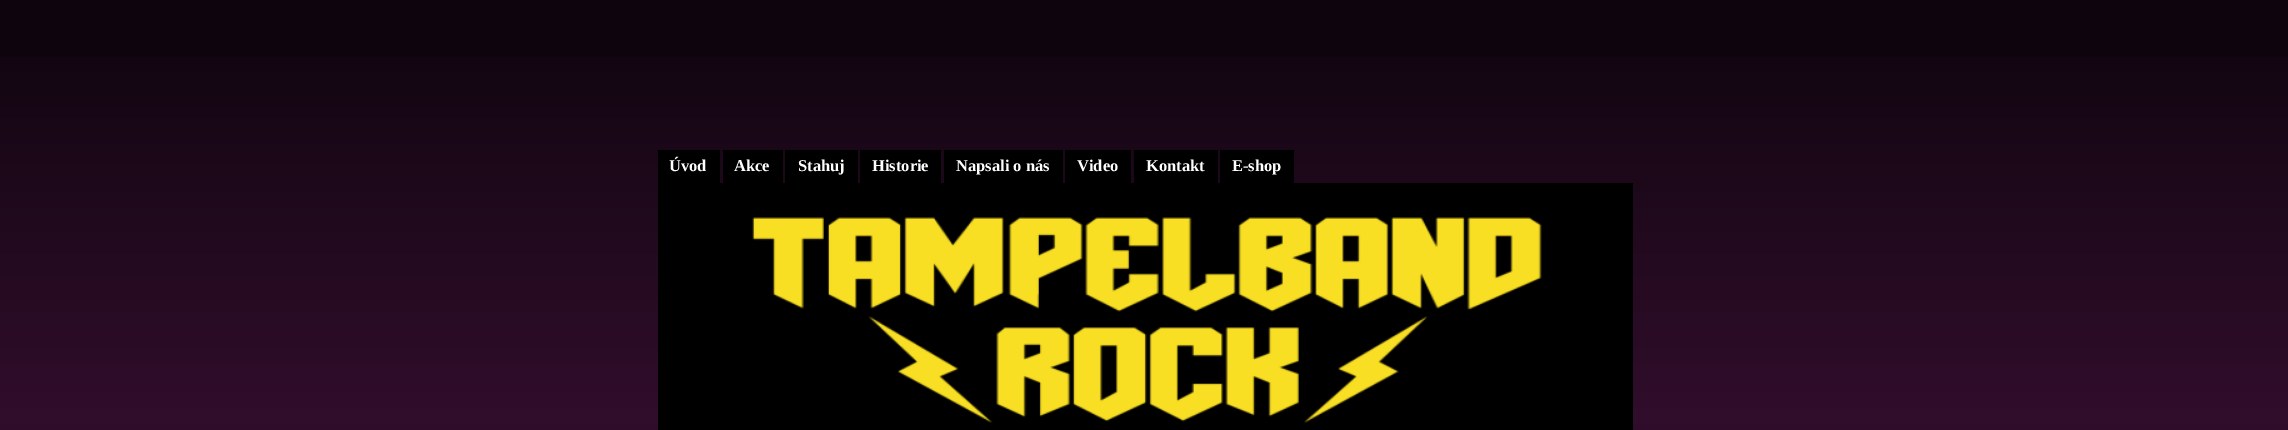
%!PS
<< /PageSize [2288 430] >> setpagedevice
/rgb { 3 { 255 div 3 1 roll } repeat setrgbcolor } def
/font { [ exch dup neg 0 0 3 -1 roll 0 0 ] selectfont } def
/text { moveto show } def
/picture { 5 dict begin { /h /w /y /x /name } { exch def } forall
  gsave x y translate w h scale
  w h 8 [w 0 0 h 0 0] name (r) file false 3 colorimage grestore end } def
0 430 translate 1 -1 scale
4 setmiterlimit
14 4 13 rgb
0 0 2288 430 rectfill
(img_01.rgb) 0 57 2288 373 picture
0 0 0 rgb
658 150 62 33 rectfill
723 150 60 33 rectfill
785 150 73 33 rectfill
860 150 81 33 rectfill
944 150 119 33 rectfill
1065 150 66 33 rectfill
1134 150 84 33 rectfill
1220 150 74 33 rectfill
658 183 975 247 rectfill
(img_02.rgb) 752 217 790 206 picture
/LiberationSerif-Bold 16.5 font
255 255 255 rgb
(Úvod) 669 171 text
(Akce) 734 171 text
(Stahuj) 798 171 text
(Historie) 872 171 text
(Napsali o nás) 956 171 text
(Video) 1077 171 text
(Kontakt) 1146 171 text
(E-shop) 1232 171 text
showpage
